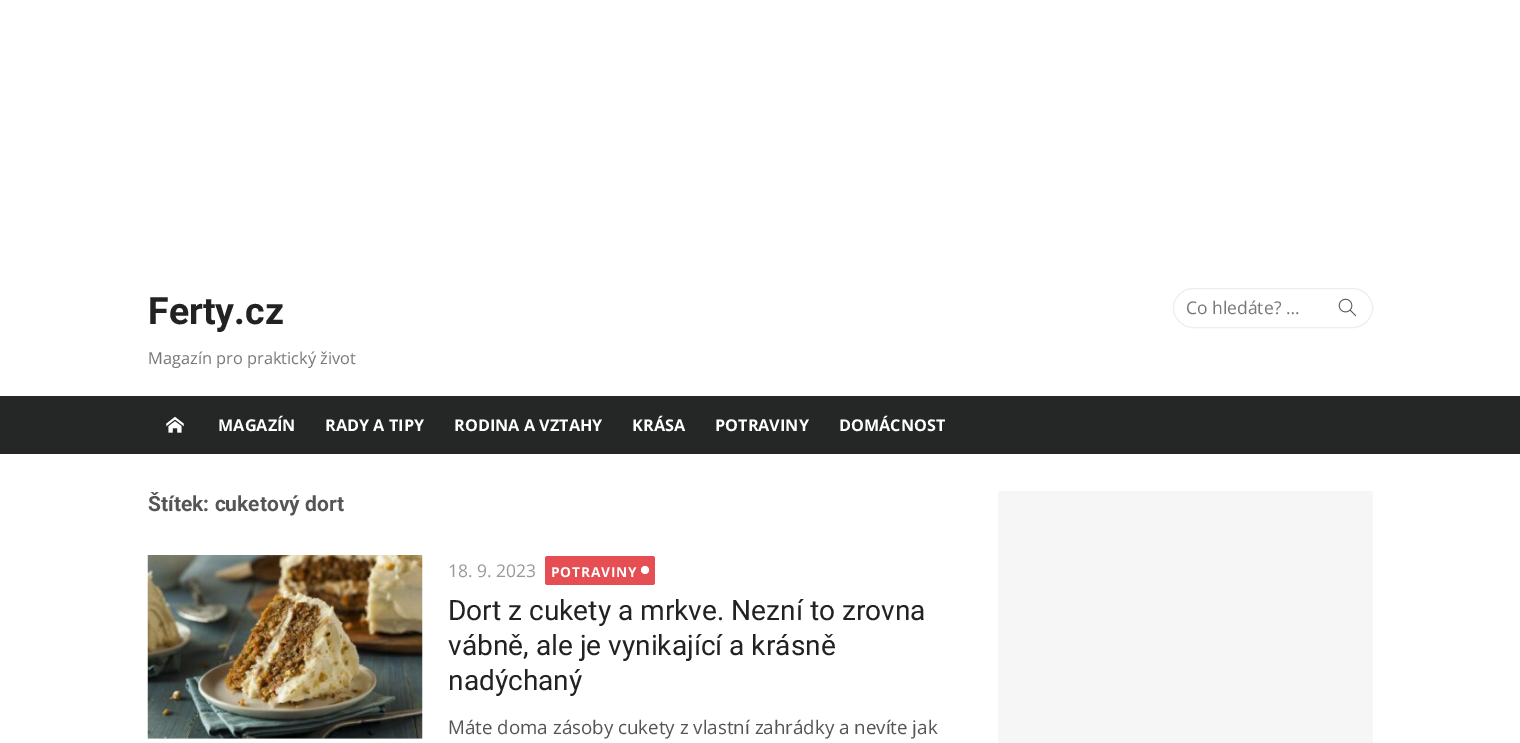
%!PS
<< /PageSize [1520 743] >> setpagedevice
/rgb { 3 { 255 div 3 1 roll } repeat setrgbcolor } def
/font { [ exch dup neg 0 0 3 -1 roll 0 0 ] selectfont } def
/text { moveto show } def
/circle { newpath 0 360 arc closepath } def
/roundrect { 5 dict begin { /r /h /w /y /x } { exch def } forall
  x r add y moveto x w add y 2 copy h add r arct x w add y h add x 1 index r arct
  x y h add x y r arct x y 2 copy exch w add exch r arct closepath end } def
/picture { 5 dict begin { /h /w /y /x /name } { exch def } forall
  gsave x y translate w h scale
  w h 8 [w 0 0 h 0 0] name (r) file false 3 colorimage grestore end } def
0 743 translate 1 -1 scale
4 setmiterlimit
255 255 255 rgb
0 0 1520 743 rectfill
238 238 238 rgb
1173.5 288.5 199 39 19.5 roundrect stroke
(img_01.rgb) 1338 298 19 19 picture
37 38 38 rgb
0 396 1520 58 rectfill
(img_02.rgb) 166 416 18 17 picture
(img_03.rgb) 147 555 276 184 picture
229 78 83 rgb
545 556 110 29 2.5 roundrect fill
255 255 255 rgb
645 570 4 circle fill
246 246 246 rgb
998 491 375 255 2.5 roundrect fill
/Roboto-Bold 37.5 font
34 34 34 rgb
(Ferty.cz) 148 324 text
/OpenSans-Regular 16.4 font
119 119 119 rgb
(Magazín pro praktický život) 148 364 text
/OpenSans-Regular 17.5 font
(Co hledáte? …) 1186 314 text
/OpenSans-Bold 16.25 font
255 255 255 rgb
(MAGAZÍN) 218 431 text
(RADY A TIPY) 325 431 text
(RODINA A VZTAHY) 454 431 text
(KRÁSA) 632 431 text
(POTRAVINY) 715 431 text
(DOMÁCNOST) 839 431 text
/Roboto-Bold 21 font
85 85 85 rgb
(Štítek: cuketový dort) 148 511 text
/OpenSans-Regular 17.5 font
153 153 153 rgb
(18. 9. 2023) 448 577 text
/OpenSans-Bold 13.75 font
255 255 255 rgb
551 577 moveto 0.75 0 (POTRAVINY) ashow
/Roboto-Regular 28.1 font
34 34 34 rgb
(Dort z cukety a mrkve. Nezní to zrovna) 448 620 text
(vábně, ale je vynikající a krásně) 448 655 text
(nadýchaný) 448 690 text
/OpenSans-Regular 18.75 font
85 85 85 rgb
(Máte doma zásoby cukety z vlastní zahrádky a nevíte jak) 448 734 text
showpage
